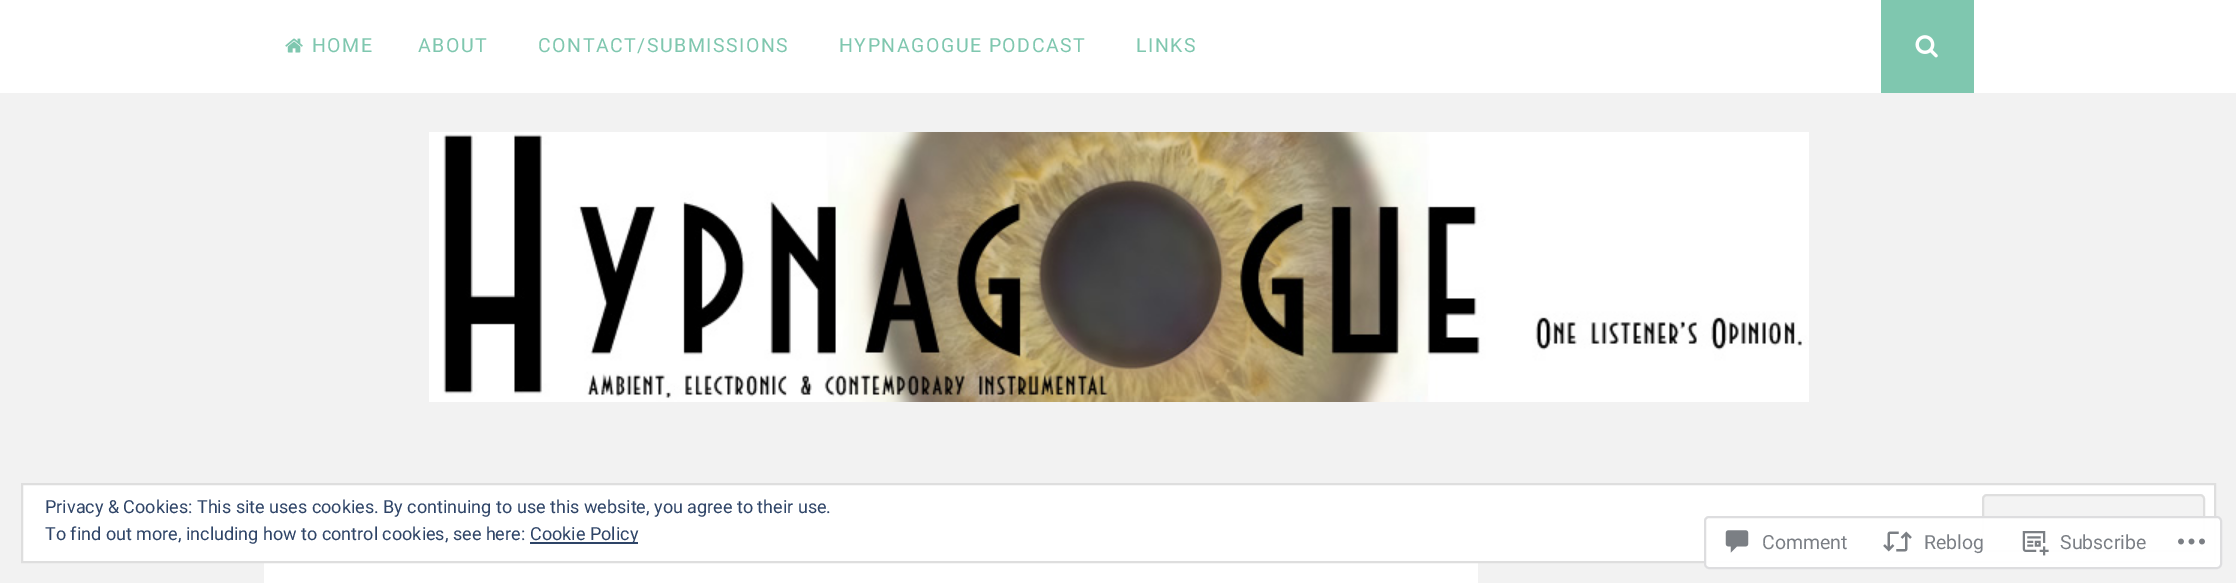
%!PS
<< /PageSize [2236 583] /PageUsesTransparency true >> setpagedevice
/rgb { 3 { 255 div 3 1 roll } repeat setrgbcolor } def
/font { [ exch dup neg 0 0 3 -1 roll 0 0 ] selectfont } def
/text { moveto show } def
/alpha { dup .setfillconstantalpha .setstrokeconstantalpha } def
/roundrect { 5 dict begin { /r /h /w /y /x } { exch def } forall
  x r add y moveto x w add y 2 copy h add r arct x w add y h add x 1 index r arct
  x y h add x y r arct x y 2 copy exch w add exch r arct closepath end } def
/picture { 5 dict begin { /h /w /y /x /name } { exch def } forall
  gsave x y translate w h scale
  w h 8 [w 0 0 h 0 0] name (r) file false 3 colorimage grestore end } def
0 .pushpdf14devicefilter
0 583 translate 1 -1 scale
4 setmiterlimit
242 242 242 rgb
0 0 2236 583 rectfill
255 255 255 rgb
0 0 2236 93 rectfill
(img_01.rgb) 285 38 18 15 picture
127 199 175 rgb
1881 0 93 93 rectfill
(img_02.rgb) 1915 35 23 23 picture
(img_03.rgb) 429 132 1380 270 picture
255 255 255 rgb
264 563 1214 20 rectfill
22 484 moveto 2193 0 rlineto 0 78 rlineto -2193 0 rlineto closepath gsave fill grestore
222 222 222 rgb
2 setlinewidth
stroke
243 243 243 rgb
1983 495 221 56 4 roundrect gsave fill grestore
222 222 222 rgb
stroke
46 68 103 rgb
530 542 108 2 rectfill
0.98 alpha
255 255 255 rgb
1704 516 518 53 5 roundrect fill
220 220 222 rgb
1705 517 516 51 4 roundrect stroke
1 alpha
(img_04.rgb) 1725 530 24 23 picture
(img_05.rgb) 1883 531 29 21 picture
(img_06.rgb) 2022 531 27 25 picture
(img_07.rgb) 2178 538 27 7 picture
/Roboto-Regular 19.5 font
127 199 175 rgb
312 52 moveto 1.5 0 (HOME) ashow
418 52 moveto 1.5 0 (ABOUT) ashow
538 52 moveto 1.5 0 (CONTACT/SUBMISSIONS) ashow
839 52 moveto 1.5 0 (HYPNAGOGUE PODCAST) ashow
1136 52 moveto 1.5 0 (LINKS) ashow
/Roboto-Regular 18 font
46 68 103 rgb
(Privacy & Cookies: This site uses cookies. By continuing to use this website, you agree to their use.) 45 513 text
(To find out more, including how to control cookies, see here:) 45 540 text
(Cookie Policy) 530 540 text
/Roboto-Regular 19.5 font
123 127 133 rgb
(Comment) 1762 549 text
(Reblog) 1924 549 text
(Subscribe) 2060 549 text
.poppdf14devicefilter showpage
